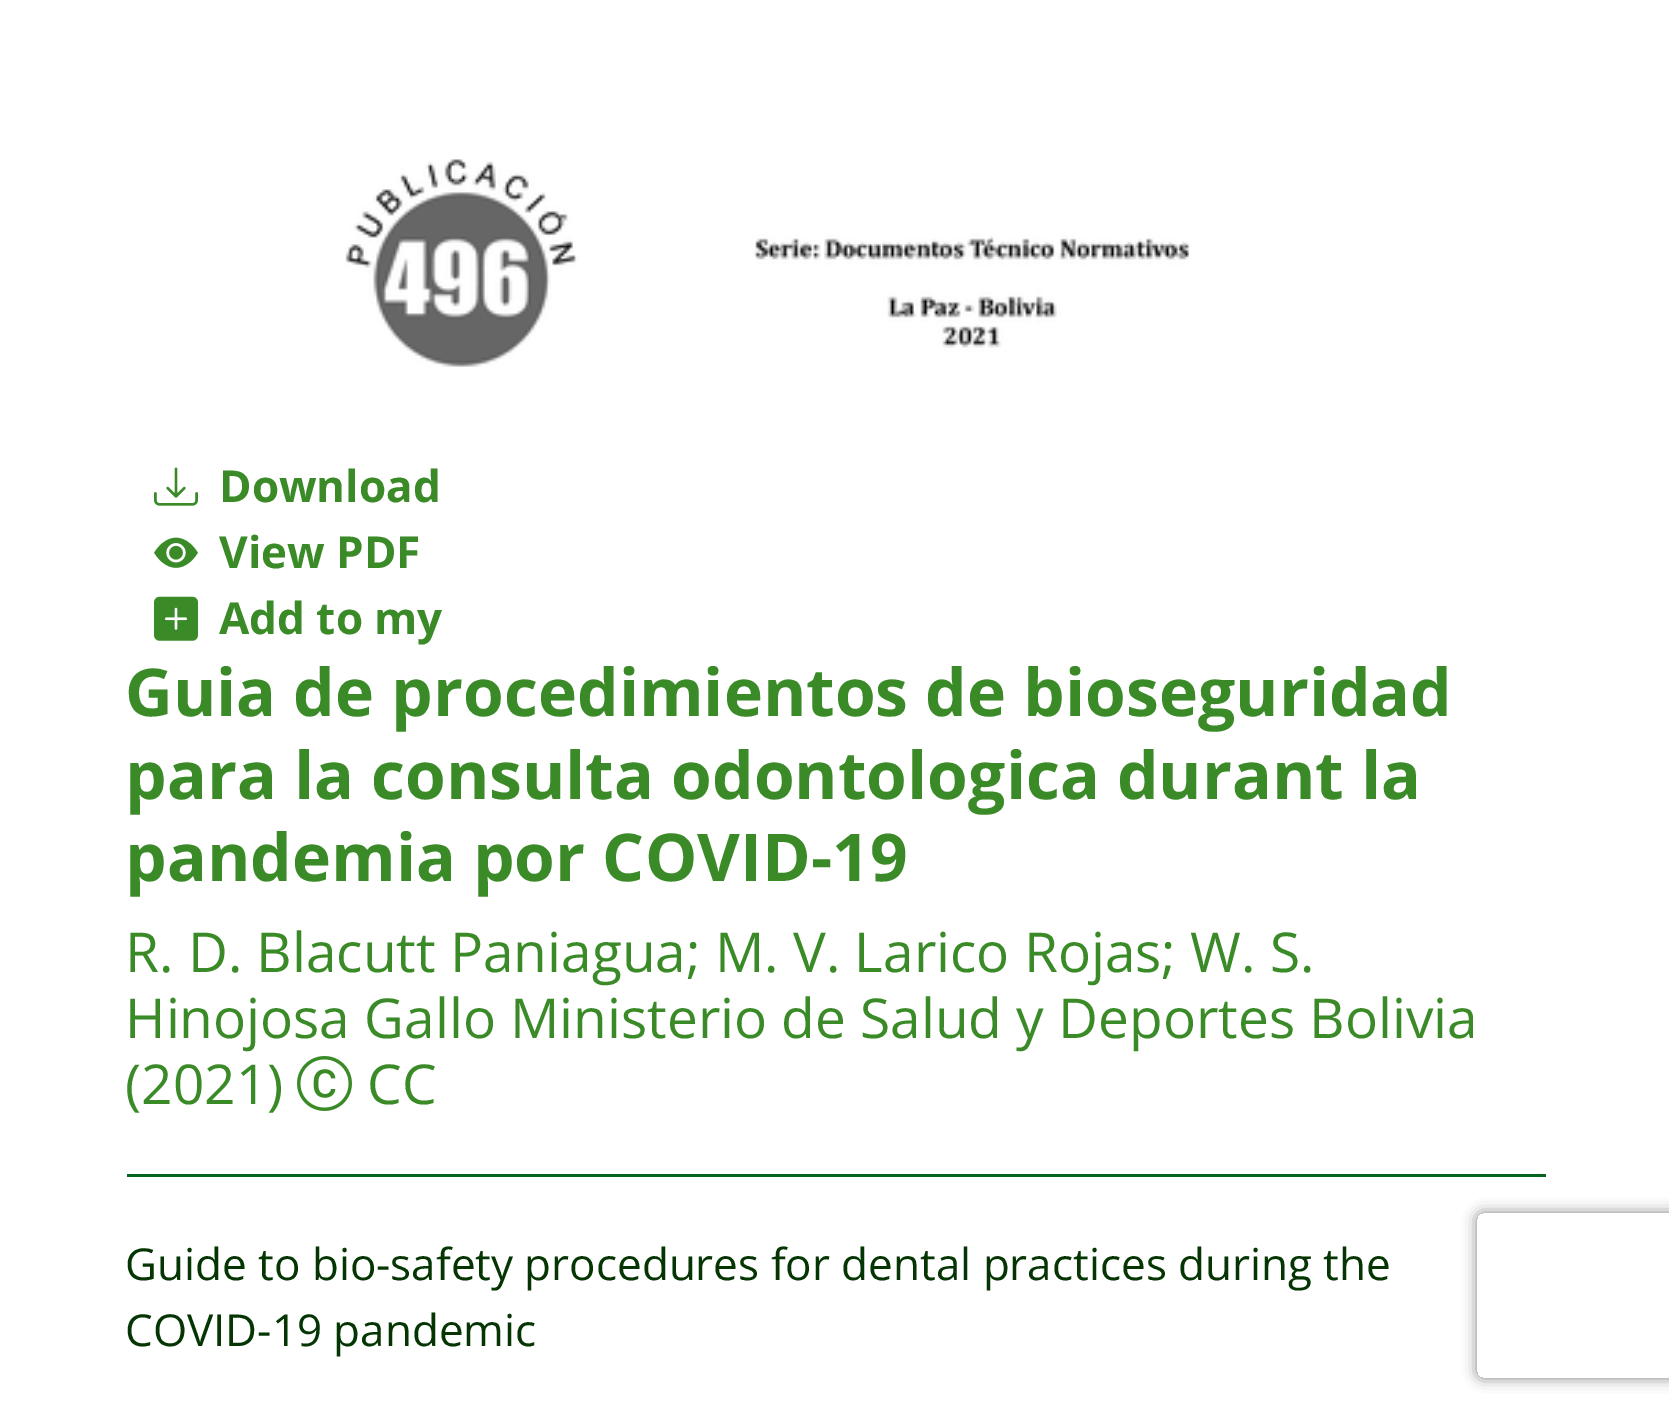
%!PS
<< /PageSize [1669 1416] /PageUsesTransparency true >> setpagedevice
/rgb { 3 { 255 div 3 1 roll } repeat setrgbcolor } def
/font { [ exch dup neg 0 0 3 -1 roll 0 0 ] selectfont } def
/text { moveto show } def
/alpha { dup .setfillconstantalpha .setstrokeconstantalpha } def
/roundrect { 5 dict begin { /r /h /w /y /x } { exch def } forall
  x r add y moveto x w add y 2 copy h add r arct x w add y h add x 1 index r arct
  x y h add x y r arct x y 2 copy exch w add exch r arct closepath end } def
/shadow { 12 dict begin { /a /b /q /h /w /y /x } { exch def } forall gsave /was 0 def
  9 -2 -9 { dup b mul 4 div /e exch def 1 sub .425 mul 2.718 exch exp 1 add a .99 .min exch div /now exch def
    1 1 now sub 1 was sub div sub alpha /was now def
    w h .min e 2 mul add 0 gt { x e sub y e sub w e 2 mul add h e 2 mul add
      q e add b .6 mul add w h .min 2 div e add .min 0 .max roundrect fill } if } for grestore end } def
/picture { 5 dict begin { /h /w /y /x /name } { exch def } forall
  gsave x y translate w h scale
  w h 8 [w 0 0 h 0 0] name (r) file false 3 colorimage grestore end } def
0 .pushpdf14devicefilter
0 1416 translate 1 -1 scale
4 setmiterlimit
255 255 255 rgb
0 0 1669 1416 rectfill
(img_01.rgb) 345 159 846 208 picture
(img_02.rgb) 154 467 44 39 picture
(img_03.rgb) 154 537 44 31 picture
(img_04.rgb) 154 596 44 45 picture
5 101 32 rgb
127 1174 1419 3 rectfill
(img_05.rgb) 297 1056 55 55 picture
gsave
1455 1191 moveto 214 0 rlineto 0 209 rlineto -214 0 rlineto closepath 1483 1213 moveto 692 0 rlineto 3.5 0 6 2.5 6 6 rcurveto 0 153 rlineto 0 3.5 -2.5 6 -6 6 rcurveto -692 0 rlineto -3.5 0 -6 -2.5 -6 -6 rcurveto 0 -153 rlineto 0 -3.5 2.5 -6 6 -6 rcurveto closepath eoclip newpath
128 128 128 rgb
1477 1213 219 165 6 7 1 shadow
grestore
/OpenSans-Bold 44 font
58 139 40 rgb
(Download) 219 502 text
(View PDF) 219 568 text
(Add to my) 219 634 text
/OpenSans-Bold 66 font
(Guia de procedimientos de bioseguridad) 125 716 text
(para la consulta odontologica durant la) 125 799 text
(pandemia por COVID-19) 125 881 text
/OpenSans-Regular 55 font
(R. D. Blacutt Paniagua; M. V. Larico Rojas; W. S.) 125 972 text
(Hinojosa Gallo Ministerio de Salud y Deportes Bolivia) 125 1038 text
(\(2021\)) 125 1104 text
(CC) 367 1104 text
/OpenSans-Regular 44 font
5 53 3 rgb
(Guide to bio-safety procedures for dental practices during the) 125 1280 text
(COVID-19 pandemic) 125 1346 text
.poppdf14devicefilter showpage
